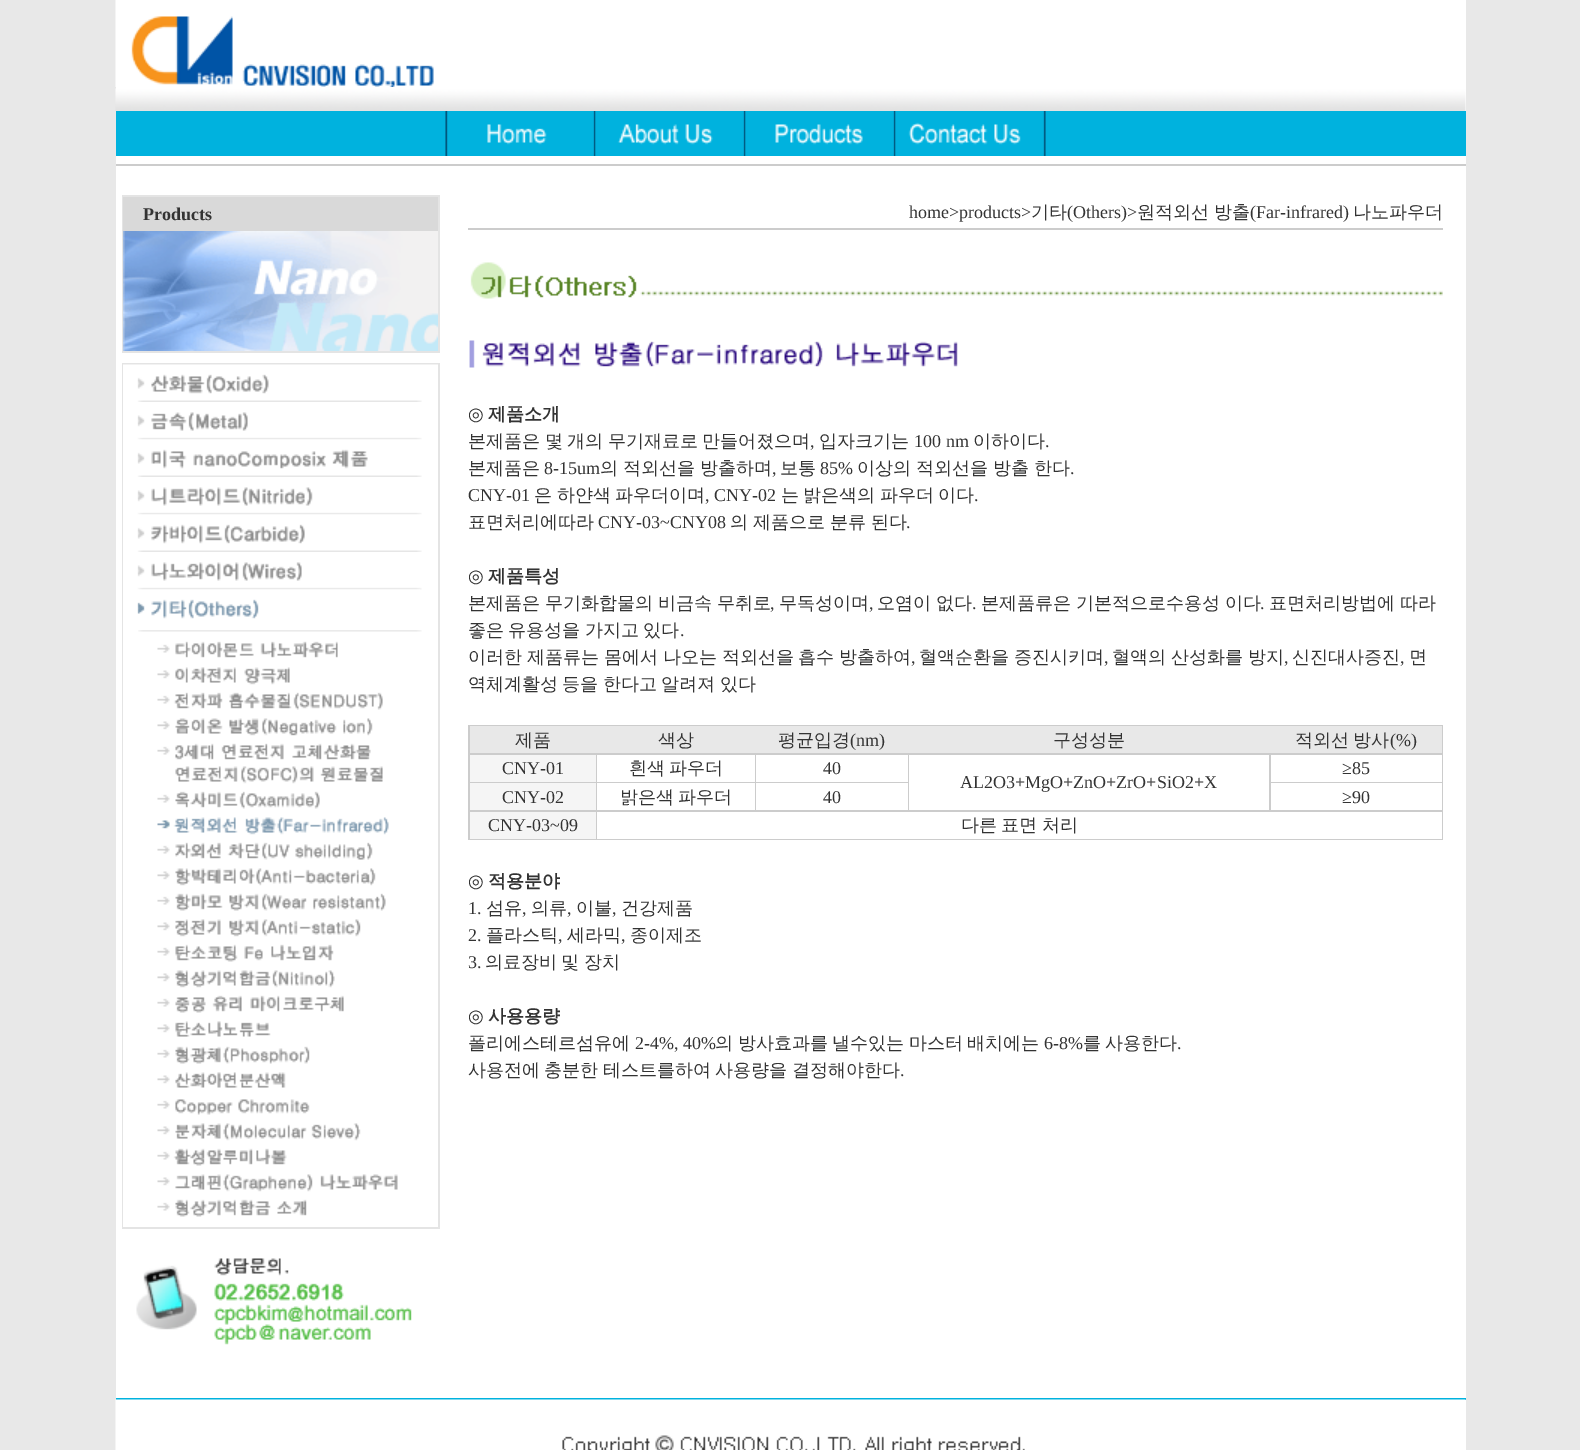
%!PS
<< /PageSize [1580 1450] >> setpagedevice
/rgb { 3 { 255 div 3 1 roll } repeat setrgbcolor } def
/font { [ exch dup neg 0 0 3 -1 roll 0 0 ] selectfont } def
/text { moveto show } def
/picture { 5 dict begin { /h /w /y /x /name } { exch def } forall
  gsave x y translate w h scale
  w h 8 [w 0 0 h 0 0] name (r) file false 3 colorimage grestore end } def
0 1450 translate 1 -1 scale
4 setmiterlimit
232 232 232 rgb
0 0 1580 1450 rectfill
255 255 255 rgb
116 0 1350 1450 rectfill
(img_01.rgb) 115 0 319 87 picture
(img_02.rgb) 115 88 1351 23 picture
0 178 222 rgb
116 111 1350 45 rectfill
(img_03.rgb) 445 111 151 45 picture
(img_04.rgb) 595 111 151 45 picture
(img_05.rgb) 745 111 151 45 picture
(img_06.rgb) 895 111 151 45 picture
204 204 204 rgb
116 164 1350 2 rectfill
228 228 228 rgb
122 195 318 158 rectfill
217 217 217 rgb
123 197 315 34 rectfill
(img_07.rgb) 123 231 315 120 picture
228 228 228 rgb
122 363 318 866 rectfill
(img_08.rgb) 123 364 315 38 picture
255 255 255 rgb
123 402 315 825 rectfill
(img_09.rgb) 137 412 285 28 picture
(img_10.rgb) 137 439 285 38 picture
(img_11.rgb) 137 487 285 28 picture
(img_12.rgb) 137 514 285 38 picture
(img_13.rgb) 137 562 285 28 picture
(img_14.rgb) 137 589 283 30 picture
(img_15.rgb) 138 630 284 2 picture
(img_16.rgb) 157 641 181 17 picture
(img_17.rgb) 157 667 133 18 picture
(img_18.rgb) 157 692 226 18 picture
(img_19.rgb) 157 718 216 18 picture
(img_20.rgb) 157 743 226 41 picture
(img_21.rgb) 157 791 163 18 picture
(img_22.rgb) 157 817 232 18 picture
(img_23.rgb) 157 842 216 18 picture
(img_24.rgb) 157 868 219 18 picture
(img_25.rgb) 157 893 229 18 picture
(img_26.rgb) 157 919 204 18 picture
(img_27.rgb) 157 944 177 18 picture
(img_28.rgb) 157 970 178 18 picture
(img_29.rgb) 157 995 187 18 picture
(img_30.rgb) 157 1021 114 16 picture
(img_31.rgb) 157 1046 153 18 picture
(img_32.rgb) 157 1072 129 16 picture
(img_33.rgb) 157 1099 153 16 picture
(img_34.rgb) 157 1123 204 18 picture
(img_35.rgb) 157 1148 130 18 picture
(img_36.rgb) 157 1174 241 18 picture
(img_37.rgb) 157 1199 150 18 picture
(img_38.rgb) 136 1258 276 87 picture
204 204 204 rgb
468 228 975 2 rectfill
(img_39.rgb) 470 262 973 37 picture
(img_40.rgb) 469 340 489 28 picture
468 725 975 115 rectfill
232 232 232 rgb
470 726 972 27 rectfill
245 245 245 rgb
470 755 126 27 rectfill
255 255 255 rgb
597 755 158 27 rectfill
756 755 152 27 rectfill
1271 755 171 27 rectfill
909 755 360 55 rectfill
245 245 245 rgb
470 783 126 27 rectfill
255 255 255 rgb
597 783 158 27 rectfill
756 783 152 27 rectfill
1271 783 171 27 rectfill
245 245 245 rgb
470 812 126 27 rectfill
255 255 255 rgb
597 812 845 27 rectfill
0 178 222 rgb
116 1398 1350 2 rectfill
(img_41.rgb) 115 1399 1351 51 picture
/LiberationSerif-Bold 18 font
51 51 51 rgb
(Products) 143 220 text
/LiberationSerif-Regular 18 font
(home>products>) 909 218 text
/WenQuanYiZenHei-Medium 18 font
(기타) 1031 218 text
/LiberationSerif-Regular 18 font
(\(Others\)>) 1067 218 text
/WenQuanYiZenHei-Medium 18 font
(원적외선 방출) 1137 218 text
/LiberationSerif-Regular 18 font
(\(Far-infrared\)) 1250 218 text
/WenQuanYiZenHei-Medium 18 font
(나노파우더) 1353 218 text
/DejaVuSans-Regular 18 font
(◎) 468 420 text
/WenQuanYiZenHei-Bold 18 font
(제품소개) 488 420 text
/WenQuanYiZenHei-Medium 18 font
(본제품은) 468 447 text
(몇) 545 447 text
(개의) 567 447 text
(무기재료로) 608 447 text
(만들어졌으며) 702 447 text
/LiberationSerif-Regular 18 font
(,) 810 447 text
/WenQuanYiZenHei-Medium 18 font
(입자크기는) 819 447 text
/LiberationSerif-Regular 18 font
(100 nm) 914 447 text
/WenQuanYiZenHei-Medium 18 font
(이하이다) 973 447 text
/LiberationSerif-Regular 18 font
(.) 1045 447 text
/WenQuanYiZenHei-Medium 18 font
(본제품은) 468 474 text
/LiberationSerif-Regular 18 font
(8-15um) 544 474 text
/WenQuanYiZenHei-Medium 18 font
600 474 moveto -0.5 0 32 (의 적외선을 방출하며) widthshow
/LiberationSerif-Regular 18 font
(,) 772 474 text
/WenQuanYiZenHei-Medium 18 font
(보통) 780 474 text
/LiberationSerif-Regular 18 font
(85%) 820 474 text
/WenQuanYiZenHei-Medium 18 font
857 474 moveto -0.5 0 32 (이상의 적외선을 방출 한다) widthshow
/LiberationSerif-Regular 18 font
(.) 1070 474 text
(CNY-01) 468 501 text
/WenQuanYiZenHei-Medium 18 font
(은) 534 501 text
(하얀색) 557 501 text
(파우더이며) 615 501 text
/LiberationSerif-Regular 18 font
(, CNY-02) 705 501 text
/WenQuanYiZenHei-Medium 18 font
(는) 781 501 text
(밝은색의) 803 501 text
(파우더) 880 501 text
(이다) 938 501 text
/LiberationSerif-Regular 18 font
(.) 974 501 text
/WenQuanYiZenHei-Medium 18 font
(표면처리에따라) 468 528 text
/LiberationSerif-Regular 18 font
(CNY-03~CNY08) 598 528 text
/WenQuanYiZenHei-Medium 18 font
730 528 moveto -0.5 0 32 (의 제품으로 분류 된다) widthshow
/LiberationSerif-Regular 18 font
(.) 906 528 text
/DejaVuSans-Regular 18 font
(◎) 468 582 text
/WenQuanYiZenHei-Bold 18 font
(제품특성) 488 582 text
/WenQuanYiZenHei-Medium 18 font
468 609 moveto -0.5 0 32 (본제품은 무기화합물의 비금속 무취로) widthshow
/LiberationSerif-Regular 18 font
(,) 770 609 text
/WenQuanYiZenHei-Medium 18 font
(무독성이며) 779 609 text
/LiberationSerif-Regular 18 font
(,) 869 609 text
/WenQuanYiZenHei-Medium 18 font
877 609 moveto -0.5 0 32 (오염이 없다) widthshow
/LiberationSerif-Regular 18 font
(.) 972 609 text
/WenQuanYiZenHei-Medium 18 font
981 609 moveto -0.5 0 32 (본제품류은 기본적으로수용성 이다) widthshow
/LiberationSerif-Regular 18 font
(.) 1260 609 text
/WenQuanYiZenHei-Medium 18 font
1269 609 moveto -0.5 0 32 (표면처리방법에 따라) widthshow
468 636 moveto -1 0 32 (좋은 유용성을 가지고 있다) widthshow
/LiberationSerif-Regular 18 font
(.) 680 636 text
/WenQuanYiZenHei-Medium 18 font
468 663 moveto -0.5 0 32 (이러한 제품류는 몸에서 나오는 적외선을 흡수 방출하여) widthshow
/LiberationSerif-Regular 18 font
(,) 911 663 text
/WenQuanYiZenHei-Medium 18 font
919 663 moveto -0.5 0 32 (혈액순환을 증진시키며) widthshow
/LiberationSerif-Regular 18 font
(,) 1104 663 text
/WenQuanYiZenHei-Medium 18 font
1112 663 moveto -0.5 0 32 (혈액의 산성화를 방지) widthshow
/LiberationSerif-Regular 18 font
(,) 1284 663 text
/WenQuanYiZenHei-Medium 18 font
(신진대사증진) 1292 663 text
/LiberationSerif-Regular 18 font
(,) 1400 663 text
/WenQuanYiZenHei-Medium 18 font
(면) 1409 663 text
468 690 moveto -1 0 32 (역체계활성 등을 한다고 알려져 있다) widthshow
(제품) 515 746 text
(색상) 658 746 text
(평균입경) 778 746 text
/LiberationSerif-Regular 18 font
(\(nm\)) 850 746 text
/WenQuanYiZenHei-Medium 18 font
(구성성분) 1053 746 text
1295 746 moveto -1 0 32 (적외선 방사) widthshow
/LiberationSerif-Regular 18 font
(\(%\)) 1390 746 text
(CNY-01) 502 774 text
/WenQuanYiZenHei-Medium 18 font
629 774 moveto -1 0 32 (흰색 파우더) widthshow
/LiberationSerif-Regular 18 font
(40) 823 774 text
(≥85) 1342 774 text
(AL2O3+MgO+ZnO+ZrO+SiO2+X) 960 788 text
(CNY-02) 502 803 text
/WenQuanYiZenHei-Medium 18 font
620 803 moveto -1 0 32 (밝은색 파우더) widthshow
/LiberationSerif-Regular 18 font
(40) 823 803 text
(≥90) 1342 803 text
(CNY-03~09) 488 831 text
/WenQuanYiZenHei-Medium 18 font
961 831 moveto -1 0 32 (다른 표면 처리) widthshow
/DejaVuSans-Regular 18 font
(◎) 468 887 text
/WenQuanYiZenHei-Bold 18 font
(적용분야) 488 887 text
/LiberationSerif-Regular 18 font
(1.) 468 914 text
/WenQuanYiZenHei-Medium 18 font
(섬유) 486 914 text
/LiberationSerif-Regular 18 font
(,) 522 914 text
/WenQuanYiZenHei-Medium 18 font
(의류) 531 914 text
/LiberationSerif-Regular 18 font
(,) 567 914 text
/WenQuanYiZenHei-Medium 18 font
(이불) 576 914 text
/LiberationSerif-Regular 18 font
(,) 612 914 text
/WenQuanYiZenHei-Medium 18 font
(건강제품) 621 914 text
/LiberationSerif-Regular 18 font
(2.) 468 941 text
/WenQuanYiZenHei-Medium 18 font
(플라스틱) 486 941 text
/LiberationSerif-Regular 18 font
(,) 558 941 text
/WenQuanYiZenHei-Medium 18 font
(세라믹) 567 941 text
/LiberationSerif-Regular 18 font
(,) 621 941 text
/WenQuanYiZenHei-Medium 18 font
(종이제조) 630 941 text
/LiberationSerif-Regular 18 font
(3.) 468 968 text
/WenQuanYiZenHei-Medium 18 font
485 968 moveto -1 0 32 (의료장비 및 장치) widthshow
/DejaVuSans-Regular 18 font
(◎) 468 1022 text
/WenQuanYiZenHei-Bold 18 font
(사용용량) 488 1022 text
/WenQuanYiZenHei-Medium 18 font
(폴리에스테르섬유에) 468 1049 text
/LiberationSerif-Regular 18 font
(2-4%, 40%) 635 1049 text
/WenQuanYiZenHei-Medium 18 font
(의) 715 1049 text
(방사효과를) 738 1049 text
(낼수있는) 832 1049 text
(마스터) 909 1049 text
(배치에는) 967 1049 text
/LiberationSerif-Regular 18 font
(6-8%) 1044 1049 text
/WenQuanYiZenHei-Medium 18 font
(를) 1083 1049 text
(사용한다) 1105 1049 text
/LiberationSerif-Regular 18 font
(.) 1177 1049 text
/WenQuanYiZenHei-Medium 18 font
468 1076 moveto -1 0 32 (사용전에 충분한 테스트를하여 사용량을 결정해야한다) widthshow
/LiberationSerif-Regular 18 font
(.) 900 1076 text
showpage
